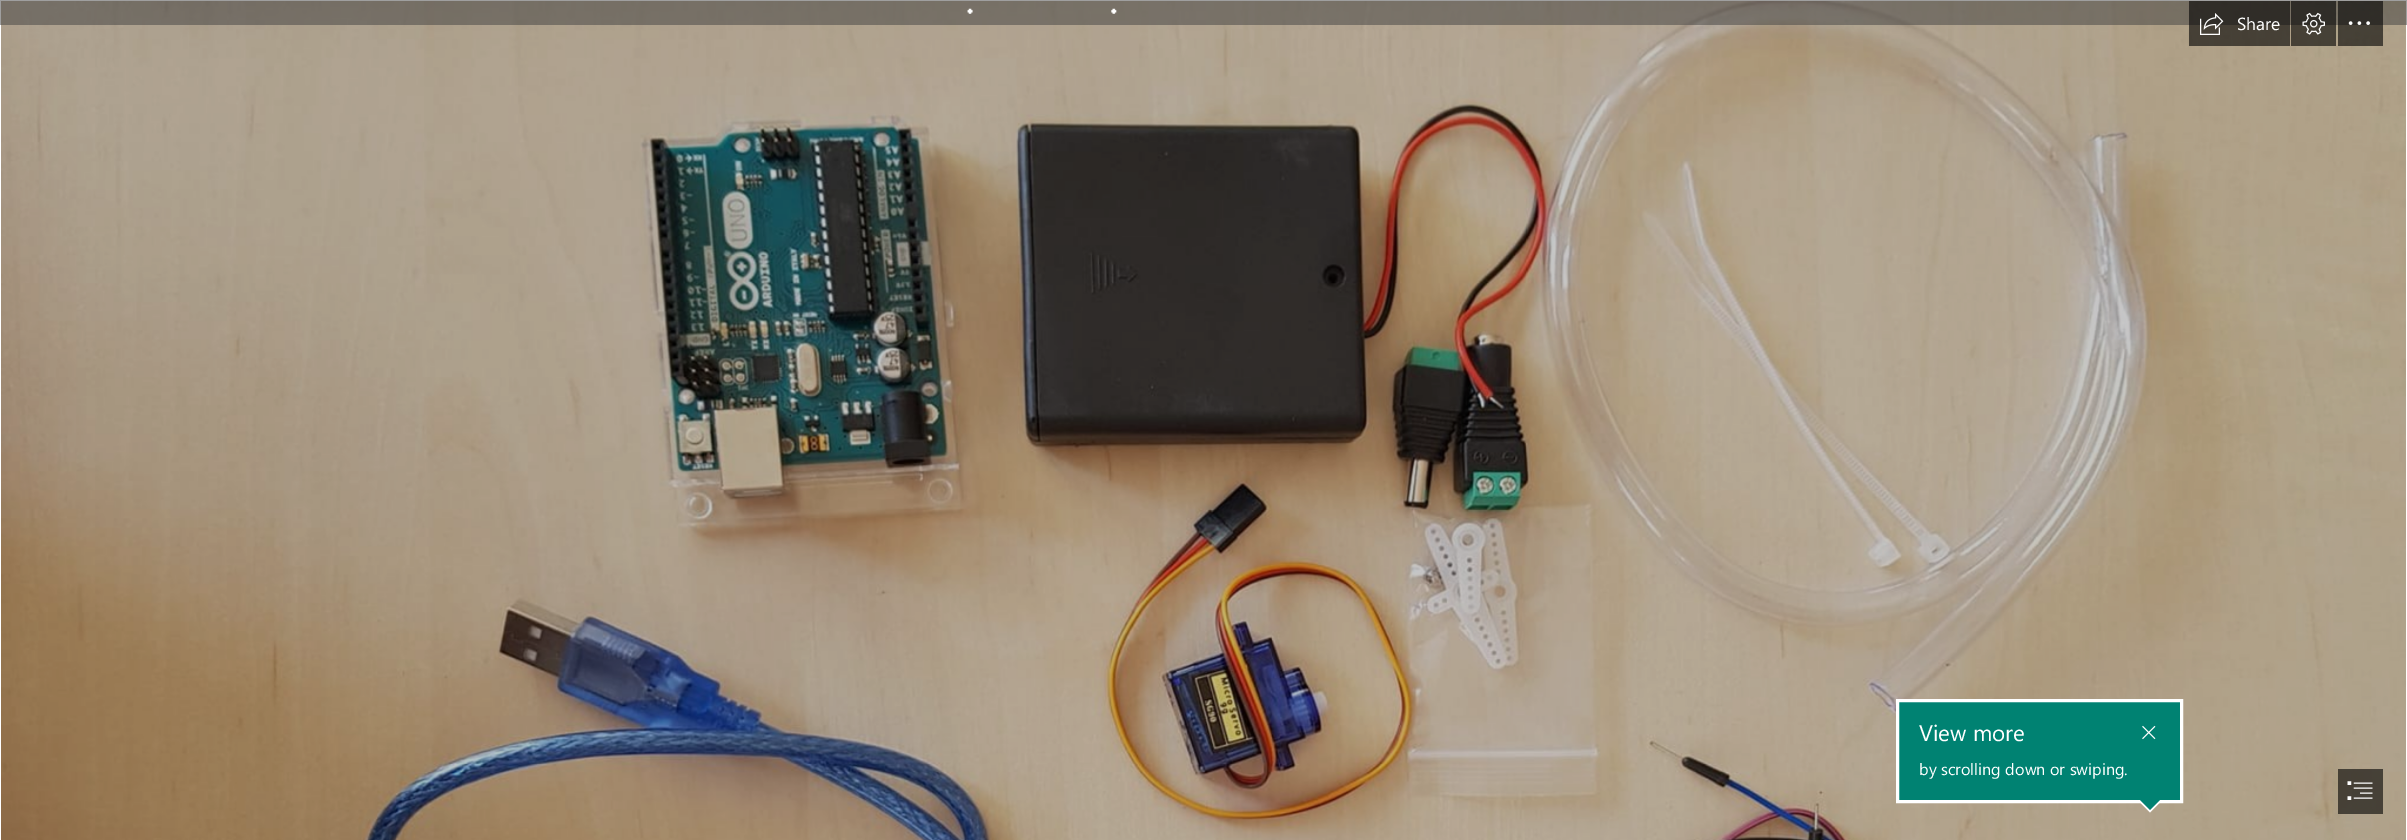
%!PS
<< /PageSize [2407 840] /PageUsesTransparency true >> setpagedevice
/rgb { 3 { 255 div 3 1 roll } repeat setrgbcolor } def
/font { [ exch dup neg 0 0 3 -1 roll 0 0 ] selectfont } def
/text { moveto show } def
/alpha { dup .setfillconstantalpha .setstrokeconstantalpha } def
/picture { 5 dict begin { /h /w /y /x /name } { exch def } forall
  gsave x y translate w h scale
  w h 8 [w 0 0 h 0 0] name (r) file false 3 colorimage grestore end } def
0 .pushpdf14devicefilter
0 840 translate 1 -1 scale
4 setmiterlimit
255 255 255 rgb
0 0 2407 840 rectfill
(img_05.rgb) 1 1 2405 839 picture
0.5 alpha
64 64 64 rgb
0 0 2407 25 rectfill
0.6 alpha
0 0 0 rgb
2189 1 101 45 rectfill
1 alpha
(img_01.rgb) 2200 13 24 22 picture
0.6 alpha
2291 1 45 45 rectfill
1 alpha
(img_02.rgb) 2302 12 23 23 picture
0.6 alpha
2338 1 45 45 rectfill
1 alpha
(img_03.rgb) 2348 21 22 4 picture
(img_04.rgb) 967 8 150 6 picture
0 130 114 rgb
1897.5 700.5 moveto 284 0 rlineto 0 101 rlineto -284 0 rlineto closepath gsave fill grestore
255 255 255 rgb
3 setlinewidth
stroke
(img_06.rgb) 2142 725 14 15 picture
2137.5 800 moveto 25 0 rlineto -12.5 12.5 rlineto closepath fill
0 130 114 rgb
2140 800 moveto 20 0 rlineto -10 10 rlineto closepath fill
0.6 alpha
0 0 0 rgb
2338 769 45 45 rectfill
1 alpha
(img_07.rgb) 2347 781 26 19 picture
/SegoeUI-Regular 17.5 font
255 255 255 rgb
(Share) 2237 30 text
/SegoeUI-Regular 22.5 font
(View more) 1919 741 text
/SegoeUI-Regular 16.25 font
(by scrolling down or swiping.) 1919 775 text
.poppdf14devicefilter showpage
